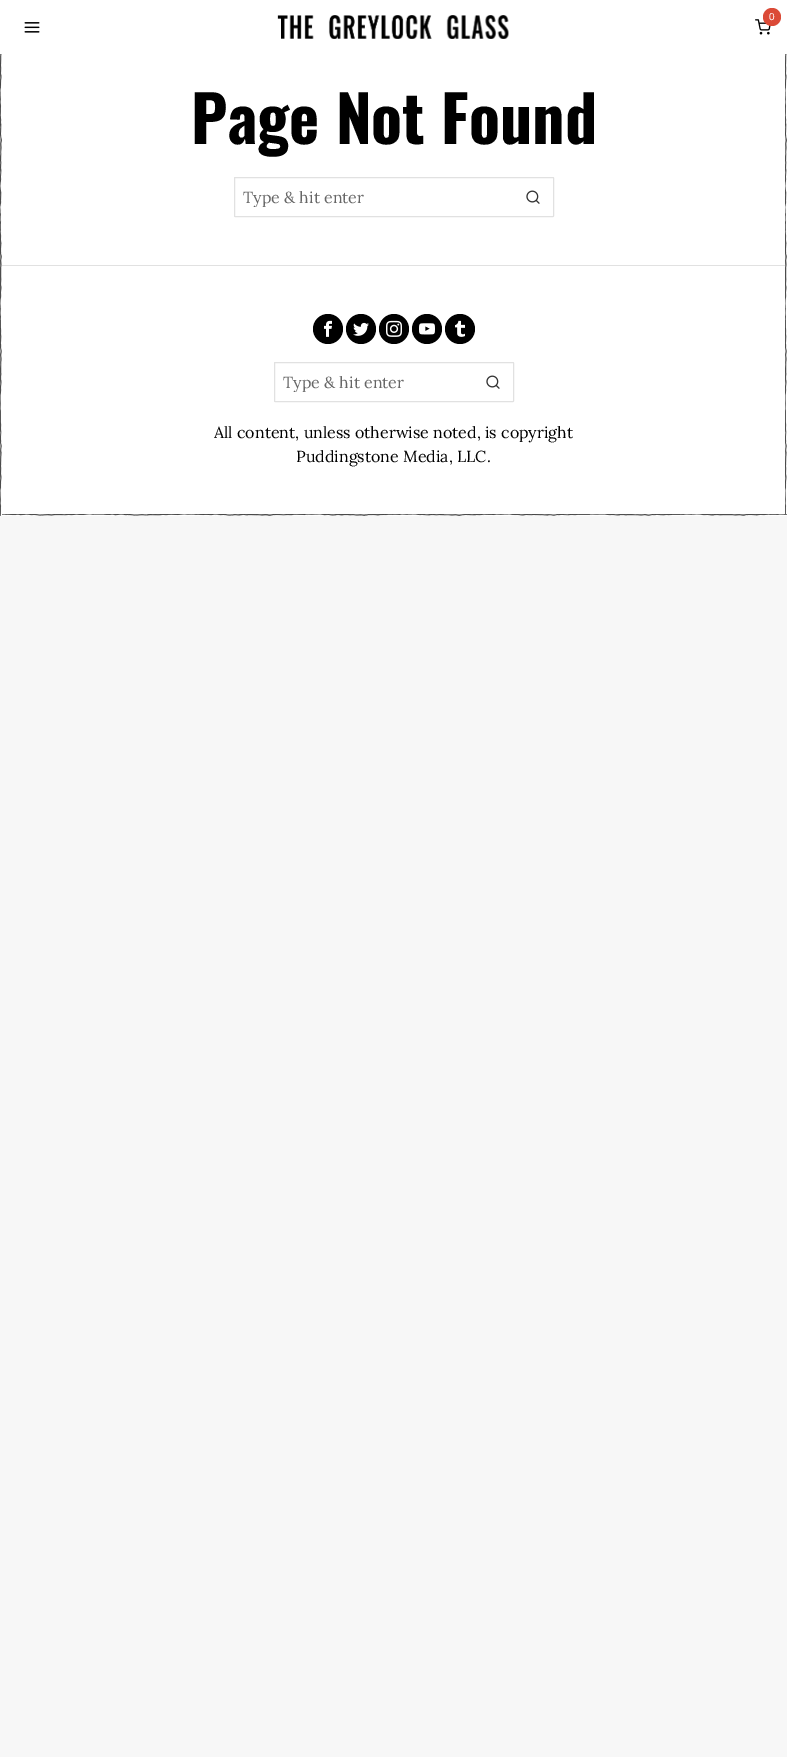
%!PS
<< /PageSize [787 1757] >> setpagedevice
/rgb { 3 { 255 div 3 1 roll } repeat setrgbcolor } def
/font { [ exch dup neg 0 0 3 -1 roll 0 0 ] selectfont } def
/text { moveto show } def
/circle { newpath 0 360 arc closepath } def
/roundrect { 5 dict begin { /r /h /w /y /x } { exch def } forall
  x r add y moveto x w add y 2 copy h add r arct x w add y h add x 1 index r arct
  x y h add x y r arct x y 2 copy exch w add exch r arct closepath end } def
/picture { 5 dict begin { /h /w /y /x /name } { exch def } forall
  gsave x y translate w h scale
  w h 8 [w 0 0 h 0 0] name (r) file false 3 colorimage grestore end } def
0 1757 translate 1 -1 scale
4 setmiterlimit
247 247 247 rgb
0 0 787 1757 rectfill
255 255 255 rgb
2 54 783 460 rectfill
0 0 787 54 rectfill
(img_01.rgb) 24 22 16 11 picture
(img_02.rgb) 277 15 232 24 picture
(img_03.rgb) 755 19 16 16 picture
219 74 55 rgb
772 17 9 circle fill
225 225 225 rgb
0 265 787 1 rectfill
(img_04.rgb) 0 54 2 462 picture
234.5 177.5 319 39 0.5 roundrect stroke
(img_05.rgb) 526 190 14 14 picture
(img_06.rgb) 785 54 2 460 picture
0 0 0 rgb
328 329 15 circle fill
(img_07.rgb) 324 320 8 17 picture
361 329 15 circle fill
(img_08.rgb) 353 322 16 14 picture
394 329 15 circle fill
(img_09.rgb) 386 320 16 17 picture
427 329 15 circle fill
(img_10.rgb) 419 323 16 12 picture
460 329 15 circle fill
(img_11.rgb) 455 320 10 17 picture
225 225 225 rgb
274.5 362.5 239 39 0.5 roundrect stroke
(img_05.rgb) 486 375 14 14 picture
(img_12.rgb) 2 514 785 2 picture
/LiberationSans-Regular 10 font
255 255 255 rgb
(0) 769 20 text
/Oswald-Bold 64 font
0 0 0 rgb
(Page Not Found) 191 144 text
gsave
243 187 270 20 rectclip
/Lora-Regular 16 font
102 102 102 rgb
(Type & hit enter) 243 203 text
grestore
gsave
283 372 190 20 rectclip
/Lora-Regular 16 font
102 102 102 rgb
(Type & hit enter) 283 388 text
grestore
/Lora-Regular 16 font
(All content, unless otherwise noted, is copyright) 214 438 text
(Puddingstone Media, LLC.) 296 462 text
showpage
